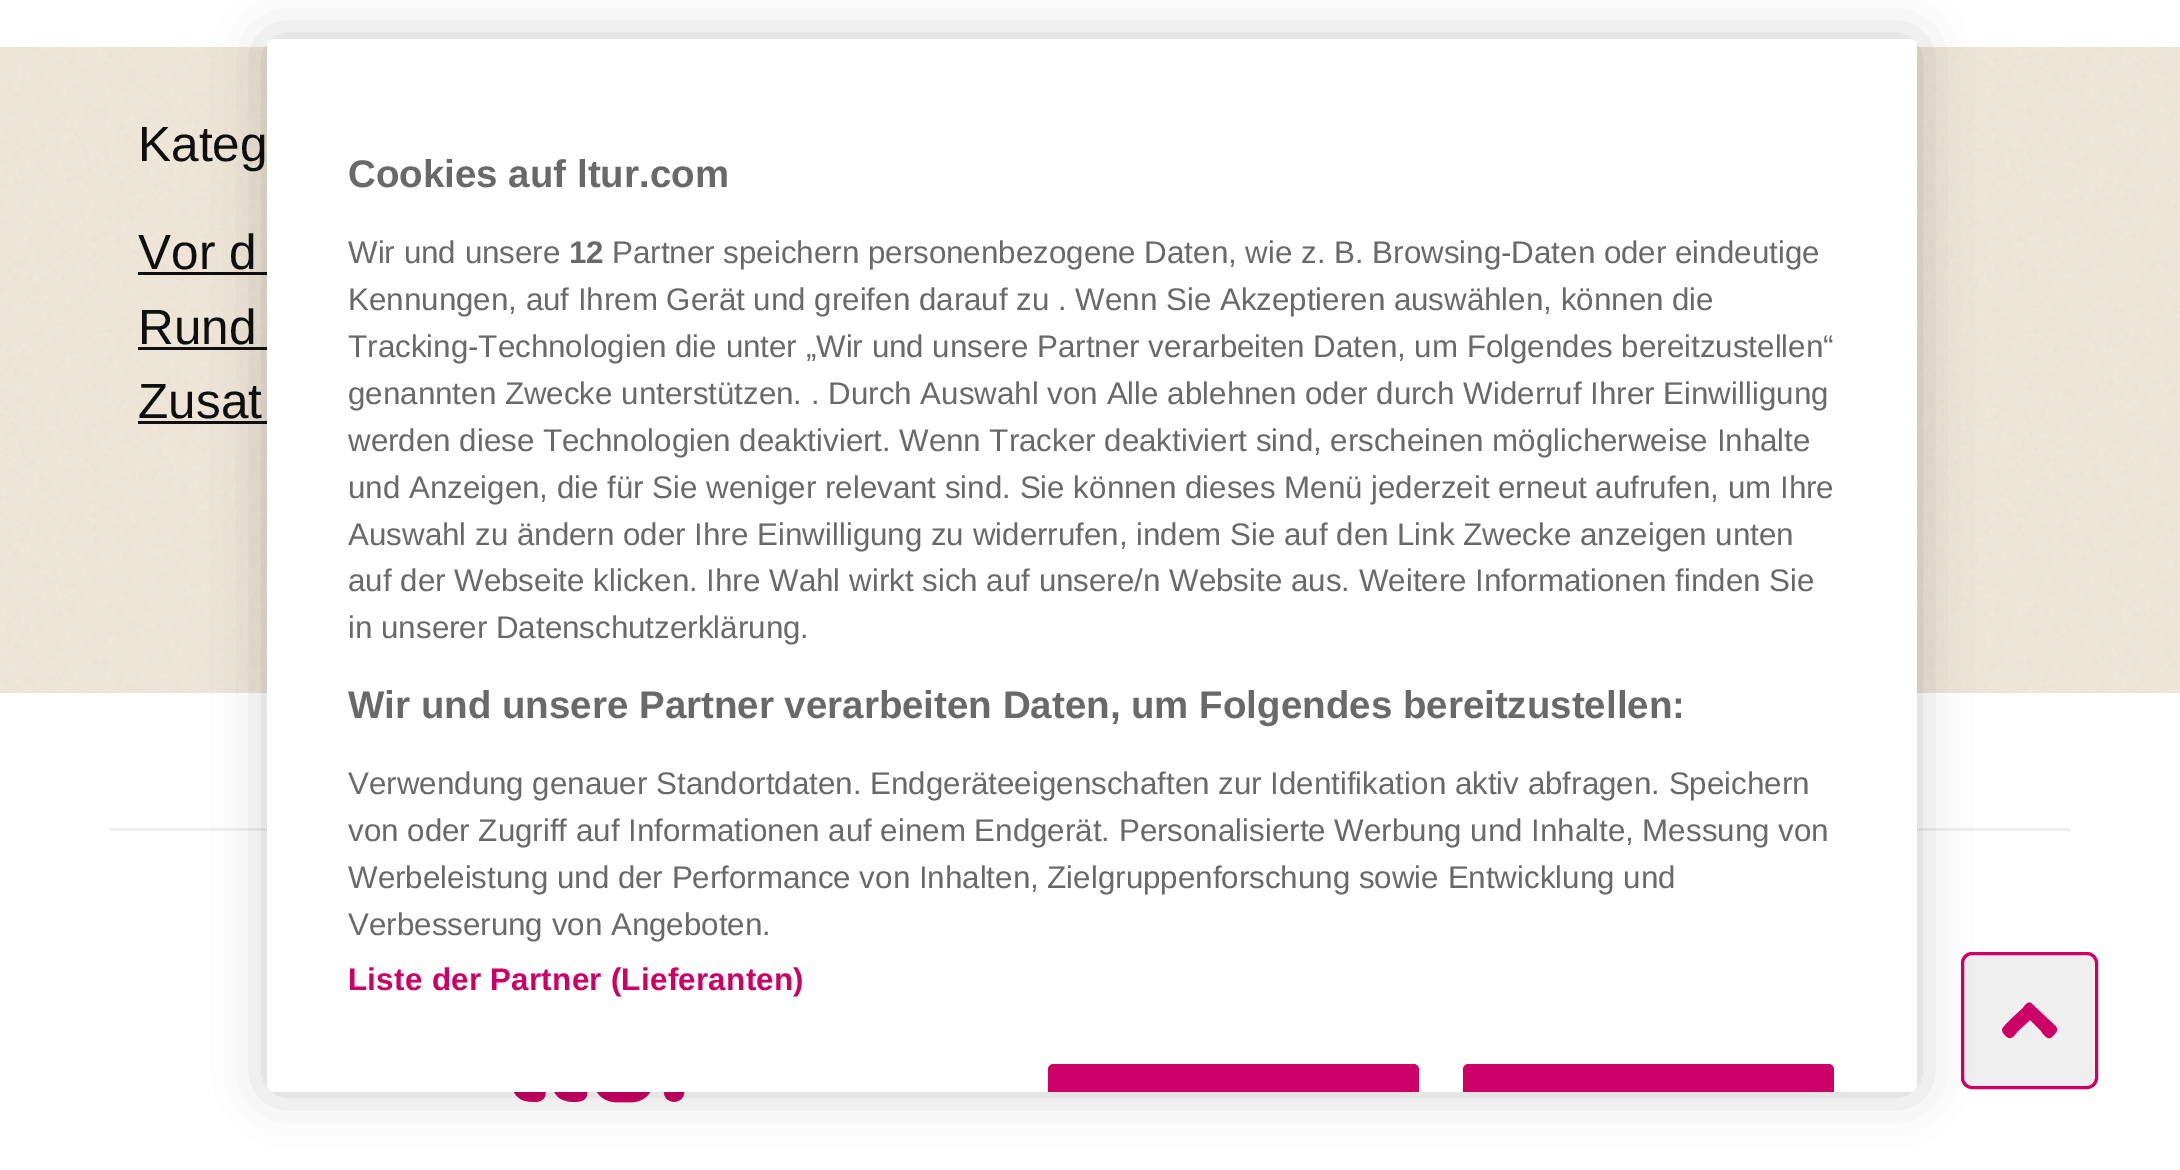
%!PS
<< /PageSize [2180 1170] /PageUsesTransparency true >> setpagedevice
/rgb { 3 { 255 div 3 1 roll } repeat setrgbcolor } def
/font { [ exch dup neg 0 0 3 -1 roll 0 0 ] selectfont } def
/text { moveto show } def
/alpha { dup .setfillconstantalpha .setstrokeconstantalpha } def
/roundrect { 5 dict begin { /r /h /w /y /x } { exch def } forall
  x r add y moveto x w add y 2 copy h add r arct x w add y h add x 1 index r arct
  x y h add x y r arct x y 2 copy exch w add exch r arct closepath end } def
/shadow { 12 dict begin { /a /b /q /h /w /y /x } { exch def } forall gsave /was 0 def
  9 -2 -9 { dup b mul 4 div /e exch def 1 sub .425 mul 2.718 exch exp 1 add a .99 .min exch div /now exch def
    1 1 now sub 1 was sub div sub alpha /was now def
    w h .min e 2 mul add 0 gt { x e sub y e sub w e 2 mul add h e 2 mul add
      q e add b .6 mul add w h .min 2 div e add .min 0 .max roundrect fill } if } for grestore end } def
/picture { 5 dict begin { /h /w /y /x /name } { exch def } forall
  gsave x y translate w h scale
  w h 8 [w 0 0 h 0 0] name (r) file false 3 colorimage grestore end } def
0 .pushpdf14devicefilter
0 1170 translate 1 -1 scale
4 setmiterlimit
255 255 255 rgb
0 0 2180 1170 rectfill
(img_01.rgb) 0 47 2180 646 picture
15 15 15 rgb
138 272 129 3 rectfill
138 347 129 3 rectfill
138 421 129 3 rectfill
236 238 239 rgb
110 828 1961 3 rectfill
(img_02.rgb) 514 1092 171 11 picture
239 239 239 rgb
1962.5 953.5 134 134 9.5 roundrect gsave fill grestore
204 0 102 rgb
3 setlinewidth
stroke
0 0 0 rgb
267 39 1650 1053 7 25 0.2 shadow
255 255 255 rgb
267 39 1650 1053 7 roundrect fill
204 0 102 rgb
1054 1064 moveto 359 0 rlineto 3.5 0 6 2.5 6 6 rcurveto 0 22 rlineto -371 0 rlineto 0 -22 rlineto 0 -3.5 2.5 -6 6 -6 rcurveto closepath fill
1054 1064 moveto -3 0 -6 3 -6 6 rcurveto 0 22 rlineto 3 0 rlineto 0 -22 rlineto 0 -2 1 -3 3 -3 rcurveto 359 0 rlineto 2 0 3 1 3 3 rcurveto 0 22 rlineto 3 0 rlineto 0 -22 rlineto 0 -3 -3 -6 -6 -6 rcurveto closepath fill
1469 1064 moveto 359 0 rlineto 3.5 0 6 2.5 6 6 rcurveto 0 22 rlineto -371 0 rlineto 0 -22 rlineto 0 -3.5 2.5 -6 6 -6 rcurveto closepath fill
1469 1064 moveto -3 0 -6 3 -6 6 rcurveto 0 22 rlineto 3 0 rlineto 0 -22 rlineto 0 -2 1 -3 3 -3 rcurveto 359 0 rlineto 2 0 3 1 3 3 rcurveto 0 22 rlineto 3 0 rlineto 0 -22 rlineto 0 -3 -3 -6 -6 -6 rcurveto closepath fill
2032 1004 moveto 16 15 rlineto 9 9 13 9 4 18 rcurveto -4 4 -9 -3 -11 -6 rcurveto -11 -11 rlineto -12 11 rlineto -2 2 -6 10 -11 6 rcurveto -9 -8 -4 -9 4 -18 rcurveto 12 -11 rlineto 2 -3 6 -8 9 -4 rcurveto closepath fill
/LiberationSans-Regular 49.5 font
15 15 15 rgb
(Kateg) 138 161 text
(Vor d) 138 269 text
(Rund) 138 344 text
(Zusat) 138 418 text
/LiberationSans-Bold 38.5 font
105 105 105 rgb
(Cookies auf ltur.com) 348 187 text
/LiberationSans-Regular 31.3 font
(Wir und unsere) 348 263 text
/LiberationSans-Bold 31.3 font
(12) 569 263 text
/LiberationSans-Regular 31.3 font
(Partner speichern personenbezogene Daten, wie z. B. Browsing-Daten oder eindeutige) 612 263 text
(Kennungen, auf Ihrem Gerät und greifen darauf zu . Wenn Sie Akzeptieren auswählen, können die) 348 310 text
(Tracking-Technologien die unter „Wir und unsere Partner verarbeiten Daten, um Folgendes bereitzustellen“) 348 357 text
(genannten Zwecke unterstützen. . Durch Auswahl von Alle ablehnen oder durch Widerruf Ihrer Einwilligung) 348 404 text
(werden diese Technologien deaktiviert.) 348 451 text
(Wenn Tracker deaktiviert sind, erscheinen möglicherweise Inhalte) 899 451 text
(und Anzeigen, die für Sie weniger relevant sind. Sie können dieses Menü jederzeit erneut aufrufen, um Ihre) 348 498 text
(Auswahl zu ändern oder Ihre Einwilligung zu widerrufen, indem Sie auf den Link Zwecke anzeigen unten) 348 545 text
(auf der Webseite klicken. Ihre Wahl wirkt sich auf unsere/n Website aus. Weitere Informationen finden Sie) 348 591 text
(in unserer Datenschutzerklärung.) 348 638 text
/LiberationSans-Bold 38.5 font
(Wir und unsere Partner verarbeiten Daten, um Folgendes bereitzustellen:) 348 718 text
/LiberationSans-Regular 31.3 font
(Verwendung genauer Standortdaten. Endgeräteeigenschaften zur Identifikation aktiv abfragen. Speichern) 348 794 text
(von oder Zugriff auf Informationen auf einem Endgerät. Personalisierte Werbung und Inhalte, Messung von) 348 841 text
(Werbeleistung und der Performance von Inhalten, Zielgruppenforschung sowie Entwicklung und) 348 888 text
(Verbesserung von Angeboten.) 348 935 text
/LiberationSans-Bold 31.3 font
204 0 102 rgb
348 990 moveto 0.3 0 (Liste der Partner \(Lieferanten\)) ashow
.poppdf14devicefilter showpage
